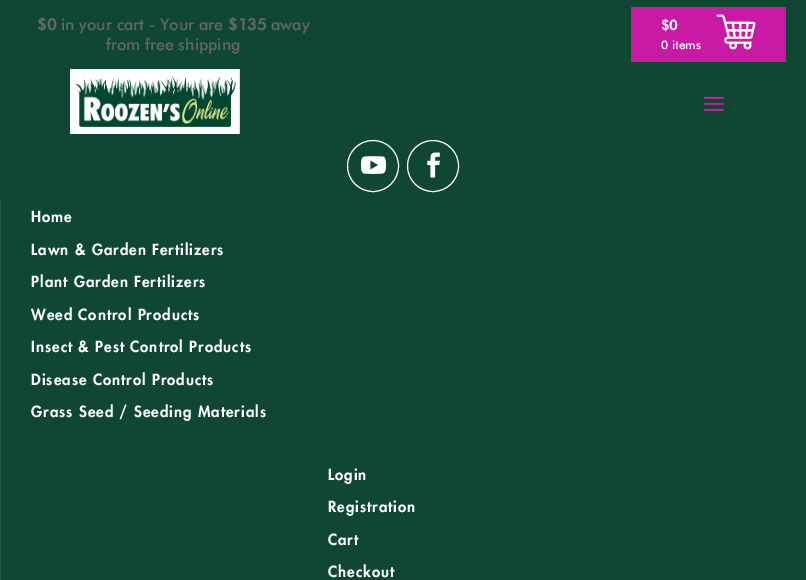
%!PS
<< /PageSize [806 580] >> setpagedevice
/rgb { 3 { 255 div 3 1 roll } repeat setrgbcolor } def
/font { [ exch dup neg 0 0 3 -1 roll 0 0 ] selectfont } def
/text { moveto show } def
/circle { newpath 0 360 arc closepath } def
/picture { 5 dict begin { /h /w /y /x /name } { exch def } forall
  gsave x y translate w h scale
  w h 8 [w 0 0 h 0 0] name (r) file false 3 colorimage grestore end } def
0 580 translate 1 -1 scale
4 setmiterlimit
16 71 50 rgb
0 0 806 580 rectfill
201 26 166 rgb
631 7 155 55 rectfill
(img_01.rgb) 716 14 40 36 picture
(img_02.rgb) 70 69 170 65 picture
(img_03.rgb) 704 96 20 15 picture
255 255 255 rgb
373 166 25.5 circle stroke
(img_04.rgb) 361 156 25 18 picture
433 166 25.5 circle stroke
(img_05.rgb) 427 152 13 26 picture
40 90 71 rgb
0 200 1 380 rectfill
/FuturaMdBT-Bold 16 font
102 102 102 rgb
($0) 37 30 text
/FuturaMdBT-Medium 16 font
(in your cart - Your are) 61 30 text
/FuturaMdBT-Bold 16 font
($135) 228 30 text
/FuturaMdBT-Medium 16 font
(away) 271 30 text
(from free shipping) 106 50 text
/FuturaMdBT-Bold 14 font
255 255 255 rgb
($0) 661 30 text
/FuturaMdBT-Medium 12 font
(0 items) 661 49 text
/Futura-Black 15 font
31 222 moveto 1 0 (Home) ashow
31 255 moveto 1 0 (Lawn & Garden Fertilizers) ashow
31 287 moveto 1 0 (Plant Garden Fertilizers) ashow
31 320 moveto 1 0 (Weed Control Products) ashow
31 352 moveto 1 0 (Insect & Pest Control Products) ashow
31 385 moveto 1 0 (Disease Control Products) ashow
31 417 moveto 1 0 (Grass Seed / Seeding Materials) ashow
328 480 moveto 1 0 (Login) ashow
328 512 moveto 1 0 (Registration) ashow
328 545 moveto 1 0 (Cart) ashow
328 577 moveto 1 0 (Checkout) ashow
showpage
